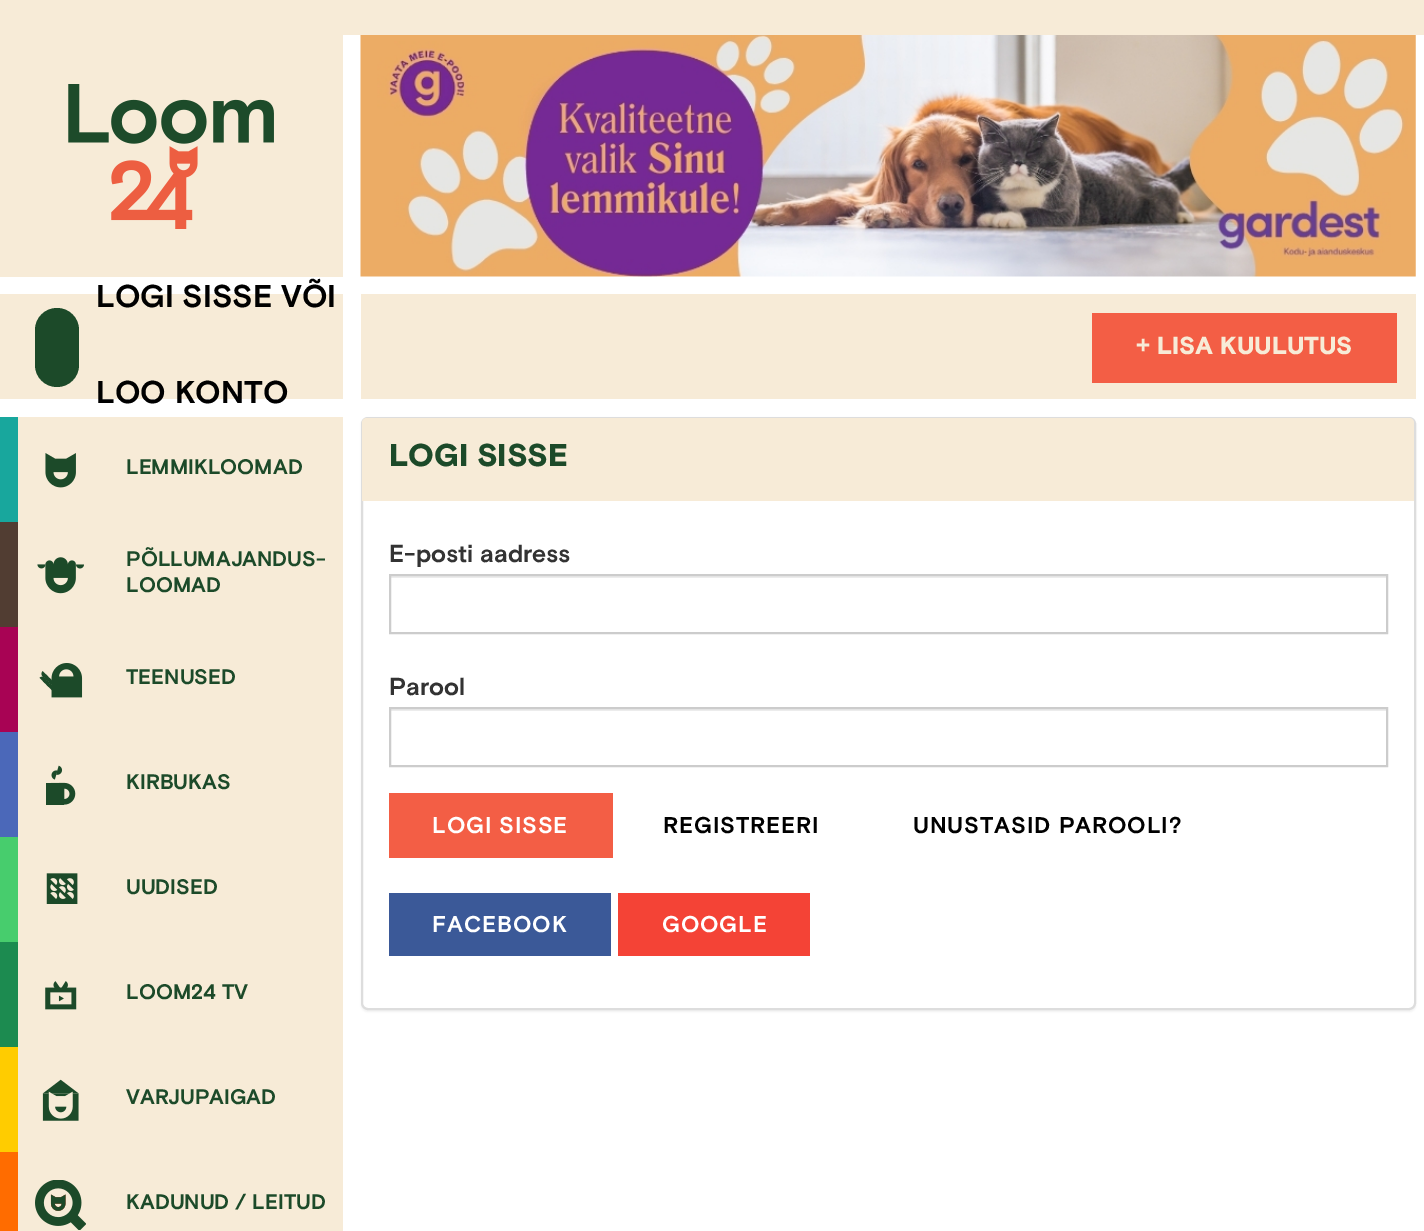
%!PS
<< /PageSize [1424 1231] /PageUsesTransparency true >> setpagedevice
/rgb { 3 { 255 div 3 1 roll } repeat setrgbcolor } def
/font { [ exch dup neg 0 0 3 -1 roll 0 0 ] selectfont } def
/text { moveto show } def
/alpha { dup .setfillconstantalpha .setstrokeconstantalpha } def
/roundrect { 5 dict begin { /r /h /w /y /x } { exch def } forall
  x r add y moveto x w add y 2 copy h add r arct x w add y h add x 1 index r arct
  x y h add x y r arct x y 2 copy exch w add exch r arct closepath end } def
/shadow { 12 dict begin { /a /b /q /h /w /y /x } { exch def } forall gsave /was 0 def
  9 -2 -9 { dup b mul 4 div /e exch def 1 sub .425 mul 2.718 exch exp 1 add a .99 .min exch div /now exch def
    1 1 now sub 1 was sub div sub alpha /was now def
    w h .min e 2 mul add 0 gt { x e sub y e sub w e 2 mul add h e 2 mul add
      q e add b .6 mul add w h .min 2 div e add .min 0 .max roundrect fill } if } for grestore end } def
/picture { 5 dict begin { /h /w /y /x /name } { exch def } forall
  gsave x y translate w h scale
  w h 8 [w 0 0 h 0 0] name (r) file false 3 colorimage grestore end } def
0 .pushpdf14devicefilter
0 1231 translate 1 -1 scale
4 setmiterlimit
247 235 215 rgb
0 0 1424 1231 rectfill
255 255 255 rgb
0 35 1424 1196 rectfill
247 235 215 rgb
0 35 343 242 rectfill
(img_01.rgb) 68 84 206 145 picture
(img_02.rgb) 360 35 1056 242 picture
0 294 343 105 rectfill
28 74 41 rgb
35 308 44 79 22 roundrect fill
247 235 215 rgb
361 294 1055 105 rectfill
243 94 69 rgb
1092 313 305 70 rectfill
247 235 215 rgb
18 417 325 814 rectfill
24 167 157 rgb
0 417 18 105 rectfill
(img_03.rgb) 45 453 31 35 picture
81 61 50 rgb
0 522 18 105 rectfill
(img_04.rgb) 37 557 47 37 picture
168 3 84 rgb
0 627 18 105 rectfill
(img_05.rgb) 39 663 44 35 picture
75 104 185 rgb
0 732 18 105 rectfill
(img_06.rgb) 46 765 30 40 picture
71 205 109 rgb
0 837 18 105 rectfill
(img_07.rgb) 46 873 32 31 picture
28 139 80 rgb
0 942 18 105 rectfill
(img_08.rgb) 45 981 32 29 picture
255 204 0 rgb
0 1047 18 105 rectfill
(img_09.rgb) 42 1079 37 42 picture
255 108 0 rgb
0 1152 18 79 rectfill
(img_10.rgb) 35 1180 51 50 picture
0 0 0 rgb
361 418 1055 594 7 1 0.05 shadow
255 255 255 rgb
362 418 1053 591 6 roundrect gsave fill grestore
221 221 221 rgb
2 setlinewidth
stroke
247 235 215 rgb
367 418 moveto 1042 0 rlineto 3 0 5 2 5 5 rcurveto 0 78 rlineto -1052 0 rlineto 0 -78 rlineto 0 -3 2 -5 5 -5 rcurveto closepath fill
236 236 236 rgb
390 576 996 2 rectfill
204 204 204 rgb
390 575 997 58 rectstroke
236 236 236 rgb
390 709 996 2 rectfill
204 204 204 rgb
390 708 997 58 rectstroke
243 94 69 rgb
389 793 224 65 rectfill
59 89 152 rgb
389 893 222 63 rectfill
244 67 54 rgb
618 893 192 63 rectfill
/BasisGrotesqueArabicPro-Bold 31.5 font
0 0 0 rgb
(LOGI SISSE VÕI) 96 307 text
(LOO KONTO) 96 403 text
/BasisGrotesqueArabicPro-Black 24.5 font
247 235 215 rgb
(+ LISA KUULUTUS) 1136 354 text
/BasisGrotesqueArabicPro-Bold 21 font
28 74 41 rgb
(LEMMIKLOOMAD) 126 474 text
(PÕLLUMAJANDUS-) 126 566 text
(LOOMAD) 126 592 text
(TEENUSED) 126 684 text
(KIRBUKAS) 126 789 text
(UUDISED) 126 894 text
(LOOM24 TV) 126 999 text
(VARJUPAIGAD) 126 1104 text
(KADUNUD / LEITUD) 126 1209 text
/BasisGrotesqueArabicPro-Black 31.5 font
(LOGI SISSE) 389 466 text
/BasisGrotesqueArabicPro-Bold 24.5 font
51 51 51 rgb
(E-posti aadress) 389 562 text
(Parool) 389 695 text
/BasisGrotesqueArabicPro-Bold 22.75 font
255 255 255 rgb
432 833 moveto 0.9 0 (LOGI SISSE) ashow
0 0 0 rgb
663 833 moveto 0.9 0 (REGISTREERI) ashow
913 833 moveto 0.9 0 (UNUSTASID PAROOLI?) ashow
255 255 255 rgb
432 932 moveto 0.9 0 (FACEBOOK) ashow
662 932 moveto 0.9 0 (GOOGLE) ashow
.poppdf14devicefilter showpage
